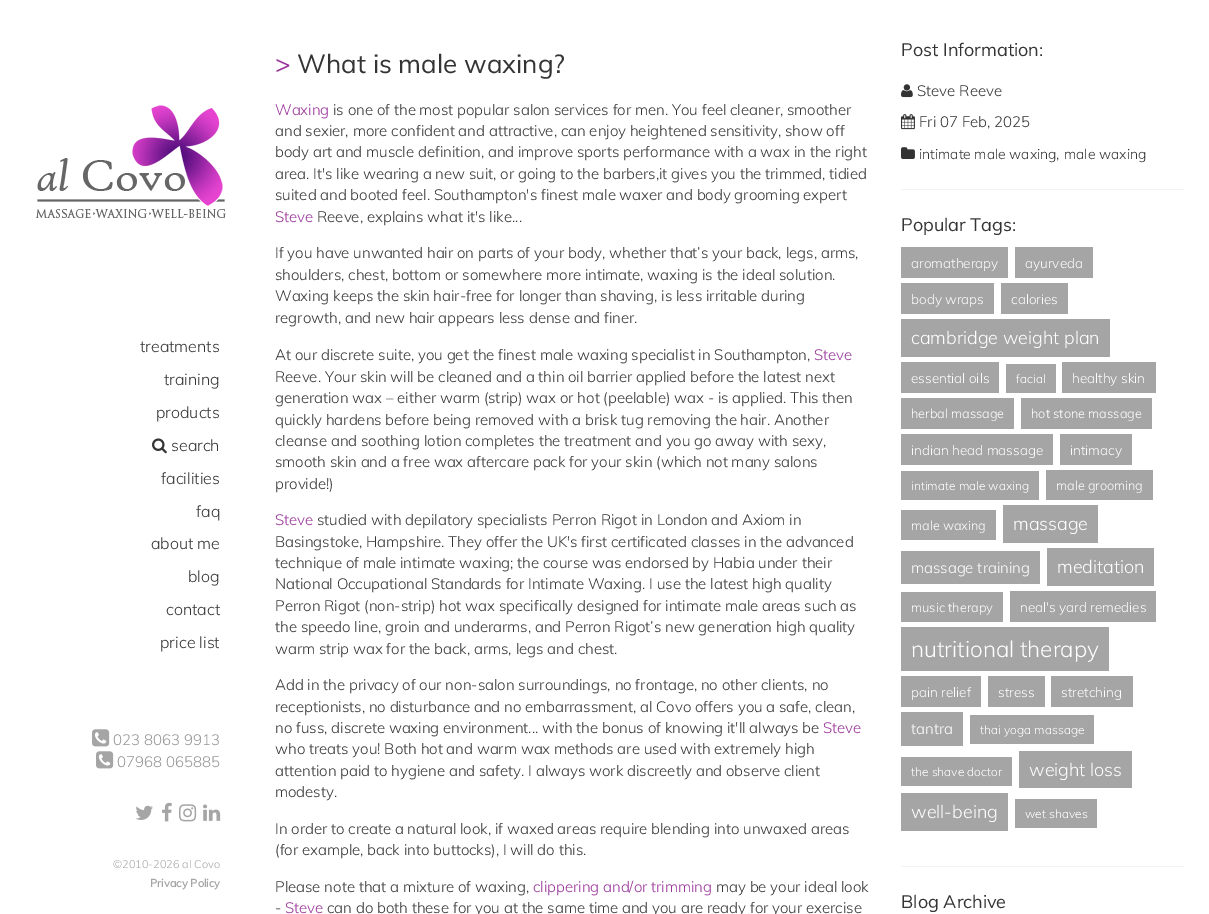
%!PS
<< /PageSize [1209 914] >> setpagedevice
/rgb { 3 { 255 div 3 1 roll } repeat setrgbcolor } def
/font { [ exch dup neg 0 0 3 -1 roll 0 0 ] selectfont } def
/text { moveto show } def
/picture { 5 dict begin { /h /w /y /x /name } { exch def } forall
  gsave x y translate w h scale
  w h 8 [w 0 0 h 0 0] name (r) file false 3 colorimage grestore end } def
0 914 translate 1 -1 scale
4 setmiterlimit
255 255 255 rgb
0 0 1209 914 rectfill
(img_01.rgb) 36 105 190 113 picture
(img_02.rgb) 152 438 15 16 picture
(img_03.rgb) 92 729 18 18 picture
(img_03.rgb) 96 751 18 18 picture
(img_04.rgb) 135 805 18 15 picture
(img_05.rgb) 162 802 10 20 picture
(img_06.rgb) 179 804 18 18 picture
(img_07.rgb) 203 804 18 17 picture
243 243 243 rgb
901 189 283 1 rectfill
(img_08.rgb) 901 84 12 14 picture
(img_09.rgb) 901 114 14 16 picture
(img_10.rgb) 901 147 14 12 picture
901 866 283 1 rectfill
165 165 165 rgb
901 247 107 31 rectfill
1015 247 78 31 rectfill
901 283 93 31 rectfill
1001 283 67 31 rectfill
901 319 209 38 rectfill
901 362 98 31 rectfill
1006 364 50 29 rectfill
1062 362 94 31 rectfill
901 398 113 31 rectfill
1021 398 131 31 rectfill
901 434 152 31 rectfill
1060 434 72 31 rectfill
901 471 138 29 rectfill
1046 470 107 30 rectfill
901 510 95 30 rectfill
1003 505 95 38 rectfill
901 551 139 33 rectfill
1047 548 107 38 rectfill
901 592 102 30 rectfill
1010 591 146 31 rectfill
901 627 208 44 rectfill
901 676 80 31 rectfill
988 676 57 31 rectfill
1051 676 82 31 rectfill
901 712 62 34 rectfill
970 715 124 29 rectfill
901 757 111 29 rectfill
1019 751 113 37 rectfill
901 793 107 38 rectfill
1015 799 82 29 rectfill
/Muli-Light 16 font
52 52 52 rgb
(treatments) 140 352 text
(training) 164 385 text
(products) 156 418 text
(search) 171 451 text
(facilities) 161 484 text
(faq) 196 517 text
(about me) 151 549 text
(blog) 188 582 text
(contact) 166 615 text
(price list) 160 648 text
/Muli-Light 15 font
150 150 150 rgb
(023 8063 9913) 113 745 text
(07968 065885) 117 767 text
/Muli-Light 11 font
165 165 165 rgb
(©2010-2026 al Covo) 113 868 text
/Muli-Bold 11 font
(Privacy Policy) 150 887 text
/Muli-Regular 26 font
153 51 153 rgb
(>) 275 73 text
52 52 52 rgb
(What is male waxing?) 297 73 text
/Muli-Light 15 font
153 51 153 rgb
(Waxing) 275 115 text
52 52 52 rgb
(is one of the most popular salon services for men. You feel cleaner, smoother) 333 115 text
(and sexier, more confident and attractive, can enjoy heightened sensitivity, show off) 275 136 text
(body art and muscle definition, and improve sports performance with a wax in the right) 275 157 text
(area. It's like wearing a new suit, or going to the barbers,it gives you the trimmed, tidied) 275 179 text
(suited and booted feel. Southampton's finest male waxer and body grooming expert) 275 200 text
153 51 153 rgb
(Steve) 275 222 text
52 52 52 rgb
(Reeve, explains what it's like...) 317 222 text
(If you have unwanted hair on parts of your body, whether that’s your back, legs, arms,) 275 258 text
(shoulders, chest, bottom or somewhere more intimate, waxing is the ideal solution.) 275 280 text
(Waxing keeps the skin hair-free for longer than shaving, is less irritable during) 275 301 text
(regrowth, and new hair appears less dense and finer.) 275 323 text
(At our discrete suite, you get the finest male waxing specialist in Southampton,) 275 360 text
153 51 153 rgb
(Steve) 814 360 text
52 52 52 rgb
(Reeve. Your skin will be cleaned and a thin oil barrier applied before the latest next) 275 382 text
(generation wax – either warm \(strip\) wax or hot \(peelable\) wax - is applied. This then) 275 403 text
(quickly hardens before being removed with a brisk tug removing the hair. Another) 275 425 text
(cleanse and soothing lotion completes the treatment and you go away with sexy,) 275 446 text
(smooth skin and a free wax aftercare pack for your skin \(which not many salons) 275 467 text
(provide!\)) 275 489 text
153 51 153 rgb
(Steve) 275 525 text
52 52 52 rgb
(studied with depilatory specialists Perron Rigot in London and Axiom in) 317 525 text
(Basingstoke, Hampshire. They offer the UK's first certificated classes in the advanced) 275 547 text
(technique of male intimate waxing; the course was endorsed by Habia under their) 275 568 text
(National Occupational Standards for Intimate Waxing. I use the latest high quality) 275 589 text
(Perron Rigot \(non-strip\) hot wax specifically designed for intimate male areas such as) 275 611 text
(the speedo line, groin and underarms, and Perron Rigot’s new generation high quality) 275 632 text
(warm strip wax for the back, arms, legs and chest.) 275 654 text
(Add in the privacy of our non-salon surroundings, no frontage, no other clients, no) 275 690 text
(receptionists, no disturbance and no embarrassment, al Covo offers you a safe, clean,) 275 712 text
(no fuss, discrete waxing environment... with the bonus of knowing it'll always be) 275 733 text
153 51 153 rgb
(Steve) 823 733 text
52 52 52 rgb
(who treats you! Both hot and warm wax methods are used with extremely high) 275 754 text
(attention paid to hygiene and safety. I always work discreetly and observe client) 275 776 text
(modesty.) 275 797 text
(In order to create a natural look, if waxed areas require blending into unwaxed areas) 275 834 text
(\(for example, back into buttocks\), I will do this.) 275 855 text
(Please note that a mixture of waxing,) 275 892 text
153 51 153 rgb
(clippering and/or trimming) 533 892 text
52 52 52 rgb
(may be your ideal look) 716 892 text
(-) 275 913 text
153 51 153 rgb
(Steve) 285 913 text
52 52 52 rgb
(can do both these for you at the same time and you are ready for your exercise) 327 913 text
/Muli-Regular 18 font
(Post Information:) 901 56 text
/Muli-Light 15 font
(Steve Reeve) 917 96 text
(Fri 07 Feb, 2025) 919 127 text
/Muli-Light 14 font
(intimate male waxing) 919 159 text
/Muli-Light 15 font
(,) 1056 159 text
/Muli-Light 14 font
(male waxing) 1064 159 text
/Muli-Regular 18 font
(Popular Tags:) 901 231 text
/Muli-Light 13.5 font
255 255 255 rgb
(aromatherapy) 911 268 text
(ayurveda) 1025 268 text
(body wraps) 911 304 text
(calories) 1011 304 text
/Muli-Light 18 font
(cambridge weight plan) 911 344 text
/Muli-Light 13.5 font
(essential oils) 911 383 text
/Muli-Light 12 font
(facial) 1016 383 text
/Muli-Light 13.5 font
(healthy skin) 1072 383 text
/Muli-Light 12.75 font
(herbal massage) 911 418 text
(hot stone massage) 1031 418 text
/Muli-Light 13.5 font
(indian head massage) 911 455 text
(intimacy) 1070 455 text
/Muli-Light 12 font
(intimate male waxing) 911 490 text
/Muli-Light 12.75 font
(male grooming) 1056 490 text
(male waxing) 911 530 text
/Muli-Light 18 font
(massage) 1013 530 text
/Muli-Light 15 font
(massage training) 911 573 text
/Muli-Light 18 font
(meditation) 1057 573 text
/Muli-Light 12.75 font
(music therapy) 911 612 text
/Muli-Light 13.5 font
(neal's yard remedies) 1020 612 text
/Muli-Light 22.5 font
(nutritional therapy) 911 657 text
/Muli-Light 13.5 font
(pain relief) 911 697 text
(stress) 998 697 text
(stretching) 1061 697 text
/Muli-Light 15 font
(tantra) 911 734 text
/Muli-Light 12 font
(thai yoga massage) 980 734 text
(the shave doctor) 911 776 text
/Muli-Light 18 font
(weight loss) 1029 776 text
(well-being) 911 818 text
/Muli-Light 12 font
(wet shaves) 1025 818 text
/Muli-Regular 18 font
52 52 52 rgb
(Blog Archive) 901 908 text
showpage
